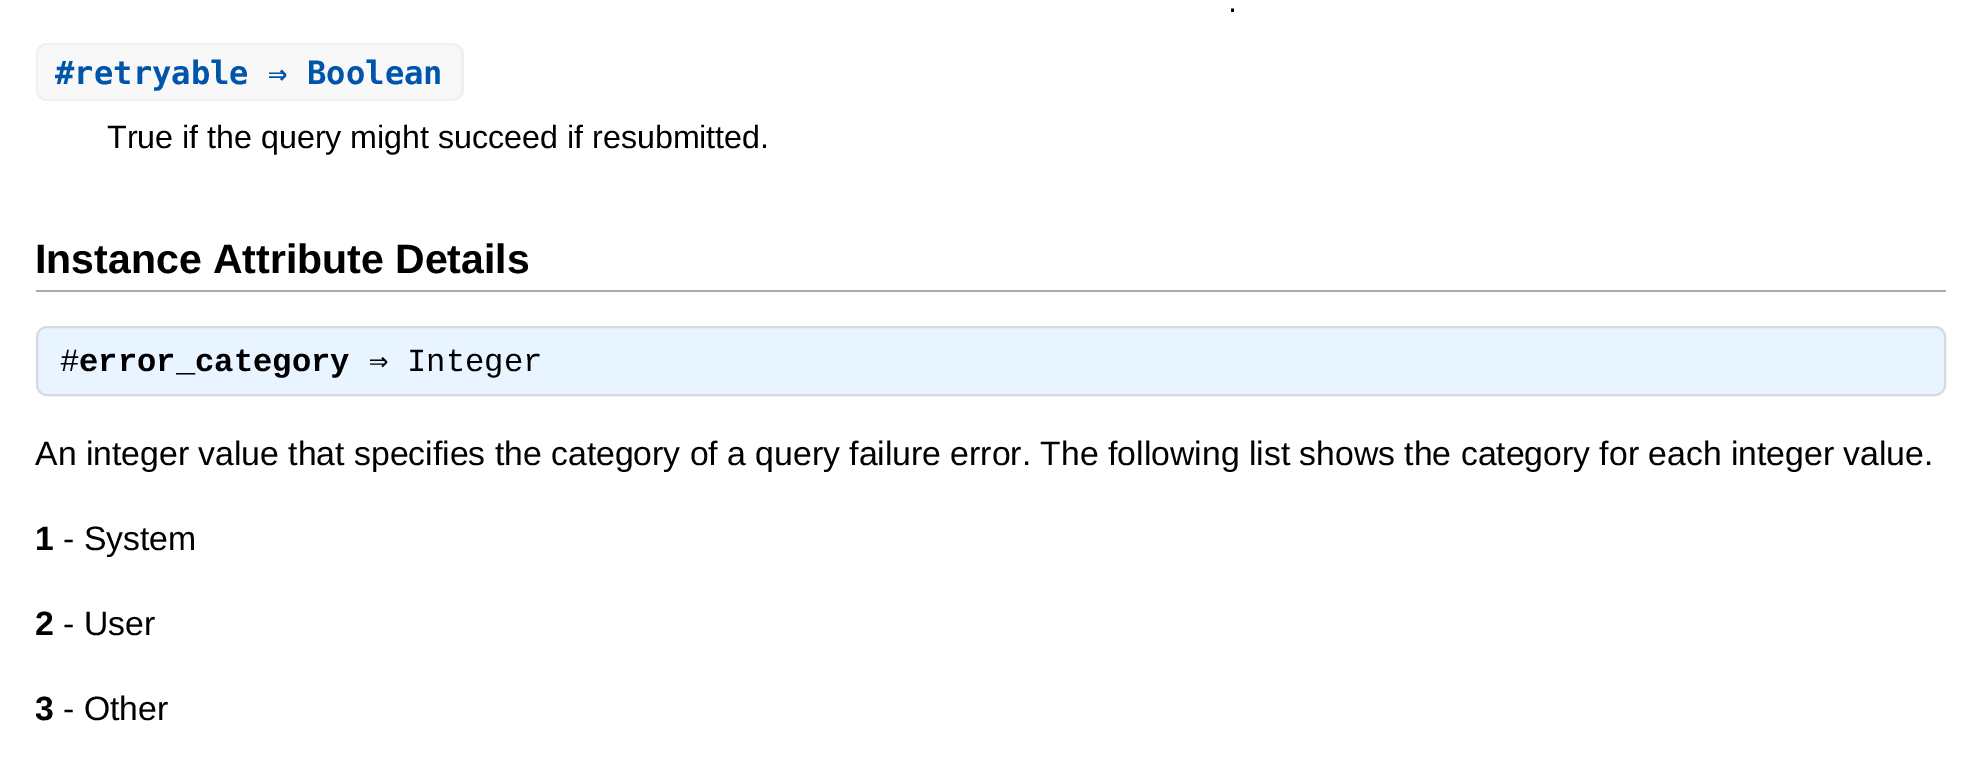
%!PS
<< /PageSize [1981 760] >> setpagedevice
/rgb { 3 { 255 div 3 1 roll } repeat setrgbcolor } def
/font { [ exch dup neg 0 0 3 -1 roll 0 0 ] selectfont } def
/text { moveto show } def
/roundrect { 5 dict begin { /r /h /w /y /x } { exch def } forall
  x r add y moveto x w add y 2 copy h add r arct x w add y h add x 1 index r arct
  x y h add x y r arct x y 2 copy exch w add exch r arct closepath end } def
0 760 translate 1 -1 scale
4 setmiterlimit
255 255 255 rgb
0 0 1981 760 rectfill
248 248 248 rgb
47 43 moveto 27 0 rlineto 0 58 rlineto -27 0 rlineto -6 0 -11 -5 -11 -11 rcurveto 0 -36 rlineto 0 -6 5 -11 11 -11 rcurveto closepath fill
240 240 240 rgb
47 43 moveto 27 0 rlineto 0 58 rlineto -27 0 rlineto -6 0 -11 -5 -11 -11 rcurveto 0 -36 rlineto 0 -6 5 -11 11 -11 rcurveto closepath 47 45 moveto 27 0 rlineto 0 54 rlineto -27 0 rlineto -5 0 -9 -4 -9 -9 rcurveto 0 -36 rlineto 0 -5 4 -9 9 -9 rcurveto closepath eofill
248 248 248 rgb
74 45 176 54 rectfill
240 240 240 rgb
74 43 176 2 rectfill
74 99 176 2 rectfill
248 248 248 rgb
250 43 moveto 203 0 rlineto 6 0 11 5 11 11 rcurveto 0 36 rlineto 0 6 -5 11 -11 11 rcurveto -203 0 rlineto closepath fill
240 240 240 rgb
250 43 moveto 202 0 rlineto 6 0 12 5 12 11 rcurveto 0 36 rlineto 0 6 -6 11 -12 11 rcurveto -202 0 rlineto closepath 250 45 moveto 202 0 rlineto 5 0 9 4 9 9 rcurveto 0 36 rlineto 0 5 -4 9 -9 9 rcurveto -202 0 rlineto closepath eofill
170 170 170 rgb
36 290 1910 2 rectfill
232 244 255 rgb
37 327 1908 68 10 roundrect gsave fill grestore
216 216 229 rgb
2 setlinewidth
stroke
/LiberationSans-Regular 32.2 font
0 0 0 rgb
(.) 1228 12 text
/DejaVuSansMono-Bold 32.2 font
0 85 170 rgb
(#retryable ⇒ Boolean) 55 84 text
/LiberationSans-Regular 32.2 font
0 0 0 rgb
(True if the query might succeed if resubmitted.) 107 148 text
/LiberationSans-Bold 41 font
(Instance Attribute Details) 35 273 text
/LiberationMono-Regular 32.2 font
(#) 60 371 text
/LiberationMono-Bold 32.2 font
(error_category) 79 371 text
/DejaVuSansMono-Regular 32.2 font
(⇒) 369 371 text
/LiberationMono-Regular 32.2 font
(Integer) 407 371 text
/LiberationSans-Regular 33.75 font
(An integer value that specifies the category of a query failure error. The following list shows the category for each integer value.) 35 465 text
/LiberationSans-Bold 33.75 font
(1) 35 550 text
/LiberationSans-Regular 33.75 font
(- System) 63 550 text
/LiberationSans-Bold 33.75 font
(2) 35 635 text
/LiberationSans-Regular 33.75 font
(- User) 63 635 text
/LiberationSans-Bold 33.75 font
(3) 35 720 text
/LiberationSans-Regular 33.75 font
(- Other) 63 720 text
showpage
